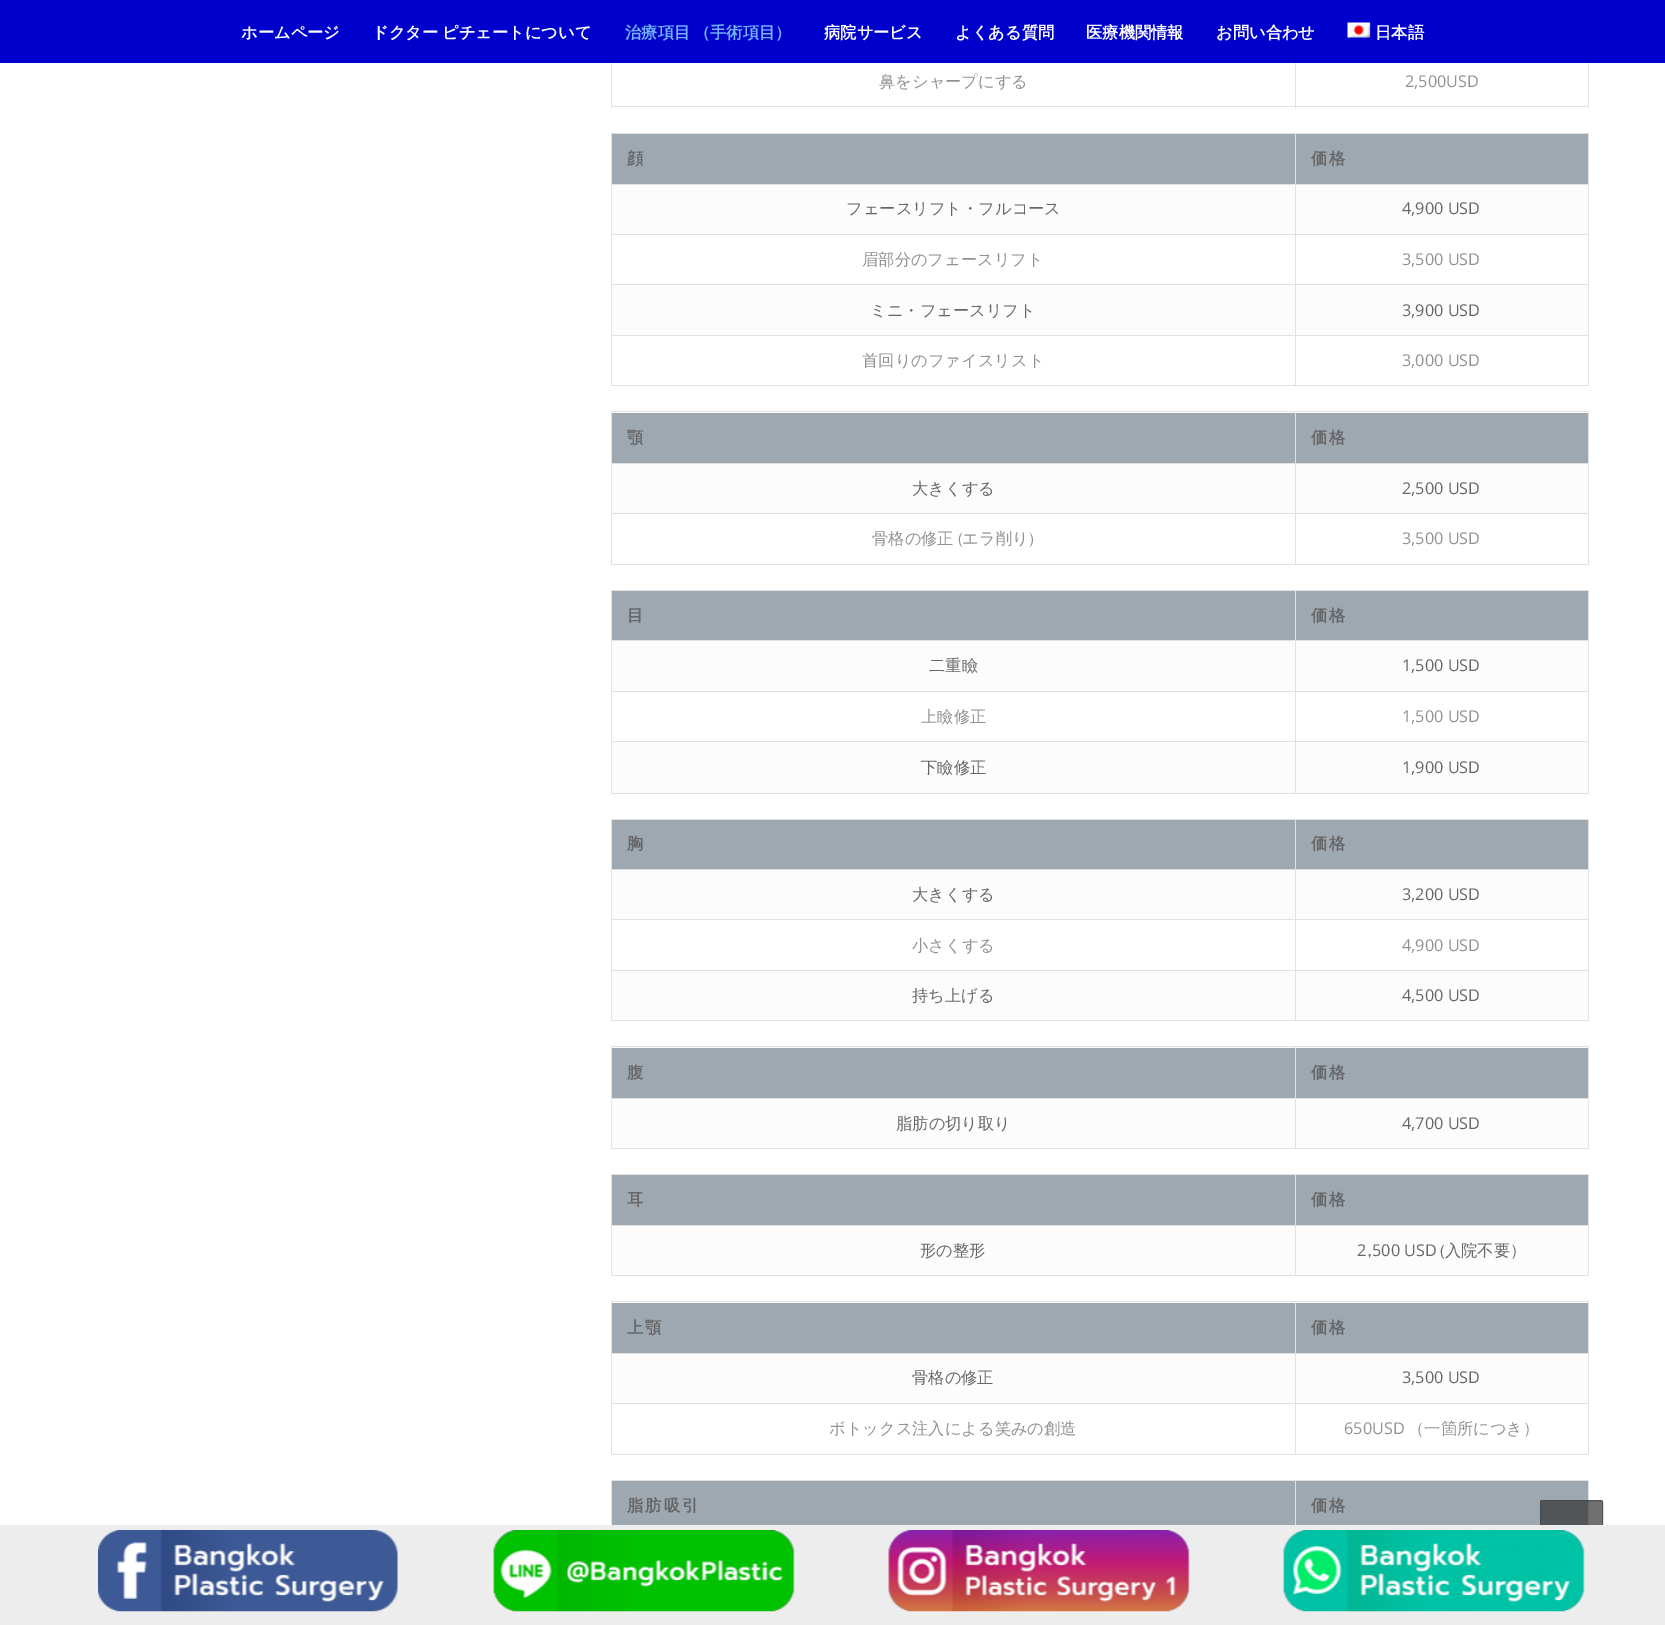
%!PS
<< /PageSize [1665 1625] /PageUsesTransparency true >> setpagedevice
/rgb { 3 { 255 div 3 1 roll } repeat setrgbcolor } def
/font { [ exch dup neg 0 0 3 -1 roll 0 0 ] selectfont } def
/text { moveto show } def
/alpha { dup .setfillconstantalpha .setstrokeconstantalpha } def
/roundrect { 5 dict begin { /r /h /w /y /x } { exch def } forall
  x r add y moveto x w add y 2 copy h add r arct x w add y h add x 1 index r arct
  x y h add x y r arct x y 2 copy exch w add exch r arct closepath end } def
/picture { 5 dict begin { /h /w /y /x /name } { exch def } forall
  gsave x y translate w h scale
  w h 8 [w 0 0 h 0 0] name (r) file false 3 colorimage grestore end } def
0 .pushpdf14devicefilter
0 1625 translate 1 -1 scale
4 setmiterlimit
255 255 255 rgb
0 0 1665 1625 rectfill
225 225 225 rgb
1588 56 1 52 rectfill
1295 106 294 1 rectfill
1295 56 1 52 rectfill
611 106 685 1 rectfill
611 56 1 52 rectfill
0 0 204 rgb
0 0 1665 63 rectfill
(img_01.rgb) 1347 22 24 16 picture
252 252 252 rgb
612 185 976 150 rectfill
158 168 177 rgb
612 134 683 50 rectfill
225 225 225 rgb
611 133 978 1 rectfill
611 184 978 1 rectfill
1588 234 1 152 rectfill
1588 184 1 51 rectfill
255 255 255 rgb
612 235 976 49 rectfill
225 225 225 rgb
1295 385 294 1 rectfill
1295 335 1 51 rectfill
1295 335 294 1 rectfill
1295 284 1 52 rectfill
1295 284 294 1 rectfill
1295 234 1 51 rectfill
1295 234 294 1 rectfill
1295 184 1 51 rectfill
1295 133 1 52 rectfill
611 385 685 1 rectfill
611 335 1 51 rectfill
611 335 685 1 rectfill
611 284 1 52 rectfill
611 284 685 1 rectfill
611 234 1 51 rectfill
611 234 685 1 rectfill
611 184 1 51 rectfill
611 133 1 52 rectfill
158 168 177 rgb
1296 134 292 50 rectfill
225 225 225 rgb
1588 133 1 52 rectfill
252 252 252 rgb
612 412 976 101 rectfill
158 168 177 rgb
612 413 683 50 rectfill
225 225 225 rgb
611 411 978 1 rectfill
611 463 978 1 rectfill
1588 513 1 52 rectfill
1588 463 1 51 rectfill
1295 564 294 1 rectfill
1295 513 1 52 rectfill
1295 513 294 1 rectfill
1295 463 1 51 rectfill
1295 411 1 53 rectfill
611 564 685 1 rectfill
611 513 1 52 rectfill
611 513 685 1 rectfill
611 463 1 51 rectfill
611 411 1 53 rectfill
158 168 177 rgb
1296 413 292 50 rectfill
225 225 225 rgb
1588 411 1 53 rectfill
252 252 252 rgb
612 641 976 152 rectfill
158 168 177 rgb
612 591 683 49 rectfill
225 225 225 rgb
611 590 978 1 rectfill
611 640 978 1 rectfill
1588 691 1 103 rectfill
1588 640 1 53 rectfill
255 255 255 rgb
612 692 976 51 rectfill
225 225 225 rgb
1295 793 294 1 rectfill
1295 741 1 53 rectfill
1295 741 294 1 rectfill
1295 691 1 52 rectfill
1295 691 294 1 rectfill
1295 640 1 53 rectfill
1295 590 1 51 rectfill
611 793 685 1 rectfill
611 741 1 53 rectfill
611 741 685 1 rectfill
611 691 1 52 rectfill
611 691 685 1 rectfill
611 640 1 53 rectfill
611 590 1 51 rectfill
158 168 177 rgb
1296 591 292 49 rectfill
225 225 225 rgb
1588 590 1 51 rectfill
252 252 252 rgb
612 870 976 150 rectfill
158 168 177 rgb
612 820 683 49 rectfill
225 225 225 rgb
611 819 978 1 rectfill
611 869 978 1 rectfill
1588 919 1 102 rectfill
1588 869 1 51 rectfill
255 255 255 rgb
612 920 976 50 rectfill
225 225 225 rgb
1295 1020 294 1 rectfill
1295 970 1 51 rectfill
1295 970 294 1 rectfill
1295 919 1 52 rectfill
1295 919 294 1 rectfill
1295 869 1 51 rectfill
1295 819 1 51 rectfill
611 1020 685 1 rectfill
611 970 1 51 rectfill
611 970 685 1 rectfill
611 919 1 52 rectfill
611 919 685 1 rectfill
611 869 1 51 rectfill
611 819 1 51 rectfill
158 168 177 rgb
1296 820 292 49 rectfill
225 225 225 rgb
1588 819 1 51 rectfill
252 252 252 rgb
612 1047 976 101 rectfill
158 168 177 rgb
612 1048 683 50 rectfill
225 225 225 rgb
611 1046 978 1 rectfill
611 1098 978 1 rectfill
1588 1098 1 51 rectfill
1295 1148 294 1 rectfill
1295 1098 1 51 rectfill
1295 1046 1 53 rectfill
611 1148 685 1 rectfill
611 1098 1 51 rectfill
611 1046 1 53 rectfill
158 168 177 rgb
1296 1048 292 50 rectfill
225 225 225 rgb
1588 1046 1 53 rectfill
252 252 252 rgb
612 1226 976 49 rectfill
158 168 177 rgb
612 1175 683 50 rectfill
225 225 225 rgb
611 1174 978 1 rectfill
611 1225 978 1 rectfill
1588 1225 1 51 rectfill
1295 1275 294 1 rectfill
1295 1225 1 51 rectfill
1295 1174 1 52 rectfill
611 1275 685 1 rectfill
611 1225 1 51 rectfill
611 1174 1 52 rectfill
158 168 177 rgb
1296 1175 292 50 rectfill
225 225 225 rgb
1588 1174 1 52 rectfill
252 252 252 rgb
612 1302 976 101 rectfill
158 168 177 rgb
612 1303 683 50 rectfill
225 225 225 rgb
611 1301 978 1 rectfill
611 1353 978 1 rectfill
1588 1403 1 52 rectfill
1588 1353 1 51 rectfill
1295 1454 294 1 rectfill
1295 1403 1 52 rectfill
1295 1403 294 1 rectfill
1295 1353 1 51 rectfill
1295 1301 1 53 rectfill
611 1454 685 1 rectfill
611 1403 1 52 rectfill
611 1403 685 1 rectfill
611 1353 1 51 rectfill
611 1301 1 53 rectfill
158 168 177 rgb
1296 1303 292 50 rectfill
225 225 225 rgb
1588 1301 1 53 rectfill
158 168 177 rgb
612 1481 683 44 rectfill
225 225 225 rgb
611 1480 978 1 rectfill
1295 1480 1 51 rectfill
611 1480 1 51 rectfill
158 168 177 rgb
1296 1481 292 44 rectfill
225 225 225 rgb
1588 1480 1 51 rectfill
0.7 alpha
51 51 51 rgb
1540 1500 63 63 2.5 roundrect fill
68 68 68 rgb
1540.5 1500.5 62 62 2 roundrect stroke
1 alpha
237 237 237 rgb
0 1525 1665 100 rectfill
(img_02.rgb) 98 1530 300 82 picture
(img_03.rgb) 493 1530 302 82 picture
(img_04.rgb) 888 1530 302 82 picture
(img_05.rgb) 1283 1530 302 82 picture
/WenQuanYiZenHei-Bold 16.25 font
255 255 255 rgb
(ホームページ) 241 38 text
372 38 moveto -1 0 32 (ドクター ピチェートについて) widthshow
115 178 255 rgb
625 38 moveto -1 0 32 (治療項目 （手術項目）) widthshow
255 255 255 rgb
(病院サービス) 824 38 text
(よくある質問) 955 38 text
(医療機関情報) 1086 38 text
(お問い合わせ) 1216 38 text
(日本語) 1375 38 text
/WenQuanYiZenHei-Medium 16.25 font
145 145 145 rgb
(鼻をシャープにする) 879 87 text
/OpenSans-Regular 16.25 font
(2,500USD) 1405 87 text
/WenQuanYiZenHei-Bold 16.25 font
102 102 102 rgb
627 164 moveto 2 0 (顔) ashow
1311 164 moveto 2 0 (価格) ashow
/WenQuanYiZenHei-Medium 16.25 font
(フェースリフト・フルコース) 846 214 text
/OpenSans-Regular 16.25 font
(4,900 USD) 1402 214 text
/WenQuanYiZenHei-Medium 16.25 font
145 145 145 rgb
(眉部分のフェースリフト) 862 265 text
/OpenSans-Regular 16.25 font
(3,500 USD) 1402 265 text
/WenQuanYiZenHei-Medium 16.25 font
102 102 102 rgb
(ミニ・フェースリフト) 870 316 text
/OpenSans-Regular 16.25 font
(3,900 USD) 1402 316 text
/WenQuanYiZenHei-Medium 16.25 font
145 145 145 rgb
(首回りのファイスリスト) 862 366 text
/OpenSans-Regular 16.25 font
(3,000 USD) 1402 366 text
/WenQuanYiZenHei-Bold 16.25 font
102 102 102 rgb
627 443 moveto 2 0 (顎) ashow
1311 443 moveto 2 0 (価格) ashow
/WenQuanYiZenHei-Medium 16.25 font
(大きくする) 912 494 text
/OpenSans-Regular 16.25 font
(2,500 USD) 1402 494 text
/WenQuanYiZenHei-Medium 16.25 font
145 145 145 rgb
872 544 moveto -1 0 32 (骨格の修正 \(エラ削り\)) widthshow
/OpenSans-Regular 16.25 font
(3,500 USD) 1402 544 text
/WenQuanYiZenHei-Bold 16.25 font
102 102 102 rgb
627 621 moveto 2 0 (目) ashow
1311 621 moveto 2 0 (価格) ashow
/WenQuanYiZenHei-Medium 16.25 font
(二重瞼) 929 671 text
/OpenSans-Regular 16.25 font
(1,500 USD) 1402 671 text
/WenQuanYiZenHei-Medium 16.25 font
145 145 145 rgb
(上瞼修正) 921 722 text
/OpenSans-Regular 16.25 font
(1,500 USD) 1402 722 text
/WenQuanYiZenHei-Medium 16.25 font
102 102 102 rgb
(下瞼修正) 921 773 text
/OpenSans-Regular 16.25 font
(1,900 USD) 1402 773 text
/WenQuanYiZenHei-Bold 16.25 font
627 849 moveto 2 0 (胸) ashow
1311 849 moveto 2 0 (価格) ashow
/WenQuanYiZenHei-Medium 16.25 font
(大きくする) 912 900 text
/OpenSans-Regular 16.25 font
(3,200 USD) 1402 900 text
/WenQuanYiZenHei-Medium 16.25 font
145 145 145 rgb
(小さくする) 912 951 text
/OpenSans-Regular 16.25 font
(4,900 USD) 1402 951 text
/WenQuanYiZenHei-Medium 16.25 font
102 102 102 rgb
(持ち上げる) 912 1001 text
/OpenSans-Regular 16.25 font
(4,500 USD) 1402 1001 text
/WenQuanYiZenHei-Bold 16.25 font
627 1078 moveto 2 0 (腹) ashow
1311 1078 moveto 2 0 (価格) ashow
/WenQuanYiZenHei-Medium 16.25 font
(脂肪の切り取り) 896 1129 text
/OpenSans-Regular 16.25 font
(4,700 USD) 1402 1129 text
/WenQuanYiZenHei-Bold 16.25 font
627 1205 moveto 2 0 (耳) ashow
1311 1205 moveto 2 0 (価格) ashow
/WenQuanYiZenHei-Medium 16.25 font
(形の整形) 920 1256 text
/OpenSans-Regular 16.25 font
(2) 1357 1256 text
/WenQuanYiZenHei-Medium 16.25 font
(,) 1367 1256 text
/OpenSans-Regular 16.25 font
(500 USD) 1372 1256 text
/WenQuanYiZenHei-Medium 16.25 font
(\(入院不要）) 1440 1256 text
/WenQuanYiZenHei-Bold 16.25 font
627 1333 moveto 2 0 (上顎) ashow
1311 1333 moveto 2 0 (価格) ashow
/WenQuanYiZenHei-Medium 16.25 font
(骨格の修正) 912 1383 text
/OpenSans-Regular 16.25 font
(3,500 USD) 1402 1383 text
/WenQuanYiZenHei-Medium 16.25 font
145 145 145 rgb
(ボトックス注入による笑みの創造) 829 1434 text
/OpenSans-Regular 16.25 font
(650USD) 1344 1434 text
/WenQuanYiZenHei-Medium 16.25 font
(（一箇所につき）) 1408 1434 text
/WenQuanYiZenHei-Bold 16.25 font
102 102 102 rgb
627 1511 moveto 2 0 (脂肪吸引) ashow
1311 1511 moveto 2 0 (価格) ashow
.poppdf14devicefilter showpage
